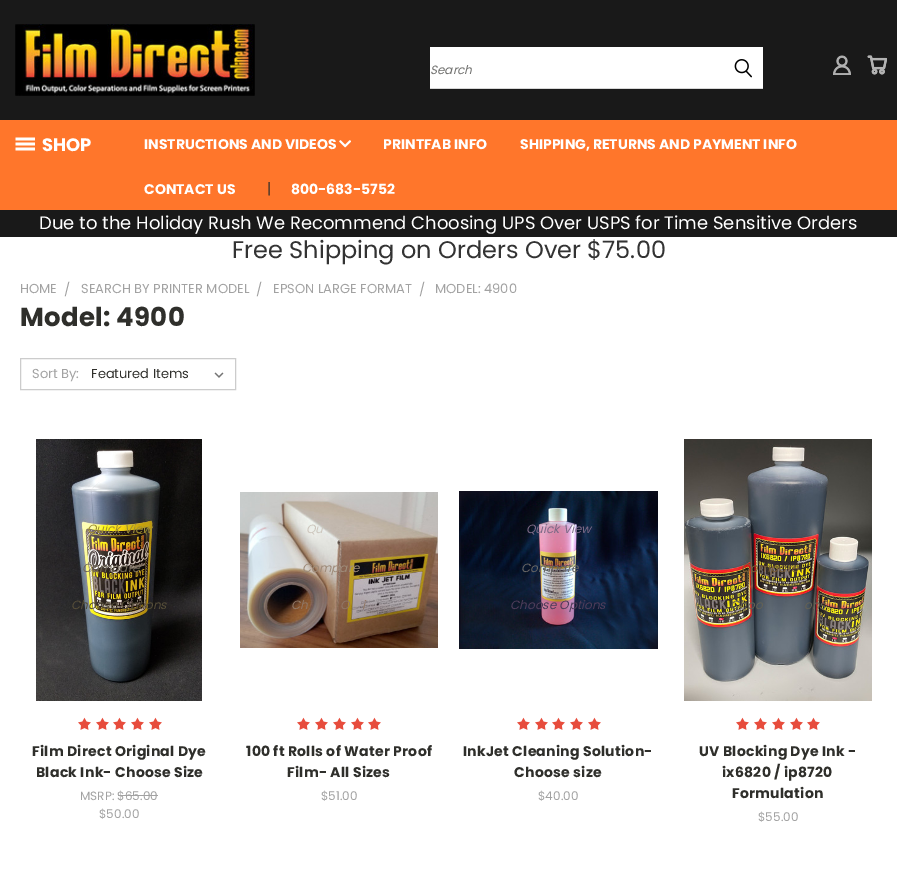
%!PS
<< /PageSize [897 873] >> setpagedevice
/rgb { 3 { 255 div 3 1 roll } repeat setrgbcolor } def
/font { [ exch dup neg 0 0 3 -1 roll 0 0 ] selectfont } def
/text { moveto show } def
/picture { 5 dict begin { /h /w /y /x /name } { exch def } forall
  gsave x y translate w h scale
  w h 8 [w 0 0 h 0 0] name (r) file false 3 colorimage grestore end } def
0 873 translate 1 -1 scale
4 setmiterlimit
255 255 255 rgb
0 0 897 873 rectfill
25 25 25 rgb
0 0 897 120 rectfill
(img_01.rgb) 15 24 240 72 picture
255 255 255 rgb
430 47 333 41 rectfill
215 215 215 rgb
430 88 333 1 rectfill
(img_02.rgb) 734 59 18 19 picture
(img_03.rgb) 833 55 18 20 picture
(img_04.rgb) 867 55 20 20 picture
255 118 43 rgb
0 120 897 90 rectfill
(img_05.rgb) 15 137 20 14 picture
(img_06.rgb) 339 140 12 8 picture
25 25 25 rgb
0 210 897 27 rectfill
204 204 204 rgb
20.5 358.5 215 31 rectstroke
(img_07.rgb) 214 372 10 6 picture
(img_08.rgb) 36 439 166 262 picture
(img_09.rgb) 78 717 13 13 picture
(img_09.rgb) 96 717 13 13 picture
(img_09.rgb) 113 717 13 13 picture
(img_09.rgb) 131 717 13 13 picture
(img_09.rgb) 149 717 13 13 picture
162 162 162 rgb
118 795 40 1 rectfill
(img_10.rgb) 240 492 198 156 picture
(img_09.rgb) 297 717 13 13 picture
(img_09.rgb) 315 717 13 13 picture
(img_09.rgb) 333 717 13 13 picture
(img_09.rgb) 351 717 13 13 picture
(img_09.rgb) 368 717 13 13 picture
(img_11.rgb) 459 491 199 158 picture
(img_09.rgb) 517 717 13 13 picture
(img_09.rgb) 535 717 13 13 picture
(img_09.rgb) 552 717 13 13 picture
(img_09.rgb) 570 717 13 13 picture
(img_09.rgb) 588 717 13 13 picture
(img_12.rgb) 684 439 188 262 picture
(img_09.rgb) 736 717 13 13 picture
(img_09.rgb) 754 717 13 13 picture
(img_09.rgb) 772 717 13 13 picture
(img_09.rgb) 790 717 13 13 picture
(img_09.rgb) 807 717 13 13 picture
/Poppins-Italic 12 font
112 112 110 rgb
(Search) 430 74 text
/Poppins-Bold 18 font
255 255 255 rgb
(SHOP) 42 151 text
/Poppins-Bold 14 font
(INSTRUCTIONS AND VIDEOS) 144 149 text
(PRINTFAB INFO) 383 149 text
(SHIPPING, RETURNS AND PAYMENT INFO) 520 149 text
(CONTACT US) 144 194 text
/Poppins-Regular 15 font
47 47 43 rgb
(|) 267 194 text
/Poppins-Bold 14 font
255 255 255 rgb
(800-683-5752) 291 194 text
/Poppins-Regular 18 font
(Due to the Holiday Rush We Recommend Choosing UPS Over USPS for Time Sensitive Orders) 39 229 text
/Poppins-Regular 24 font
51 51 51 rgb
(Free Shipping on Orders Over $75.00) 232 258 text
/Poppins-Regular 13 font
162 162 162 rgb
(HOME) 20 293 text
(/) 64 294 text
(SEARCH BY PRINTER MODEL) 81 293 text
(/) 256 294 text
(EPSON LARGE FORMAT) 273 293 text
(/) 419 294 text
(MODEL: 4900) 435 293 text
/Poppins-Bold 26 font
47 47 43 rgb
20 326 moveto 0.25 0 (Model: 4900) ashow
/Poppins-Regular 13 font
162 162 162 rgb
(Sort By:) 32 378 text
47 47 43 rgb
(Featured Items) 91 378 text
/Poppins-Italic 12 font
161 145 51 rgb
(Quick View) 87 533 text
113 105 89 rgb
(Compare) 82 572 text
85 77 56 rgb
(Choose Options) 71 609 text
/Poppins-Bold 14 font
47 47 43 rgb
32 756 moveto 0.25 0 (Film Direct Original Dye) ashow
36 777 moveto 0.25 0 (Black Ink- Choose Size) ashow
/Poppins-Regular 12 font
162 162 162 rgb
(MSRP: $65.00) 80 800 text
($50.00) 99 818 text
/Poppins-Italic 12 font
206 199 190 rgb
(Qu) 306 533 text
158 139 121 rgb
(Compare) 302 572 text
144 119 101 rgb
(Ch) 291 609 text
(O) 340 609 text
(i) 362 609 text
/Poppins-Bold 14 font
47 47 43 rgb
246 756 moveto 0.25 0 (100 ft Rolls of Water Proof) ashow
287 777 moveto 0.25 0 (Film- All Sizes) ashow
/Poppins-Regular 12 font
162 162 162 rgb
($51.00) 321 800 text
/Poppins-Italic 12 font
124 105 134 rgb
(Quick View) 526 533 text
102 100 99 rgb
(Compare) 521 572 text
78 61 90 rgb
(Choose Options) 510 609 text
/Poppins-Bold 14 font
47 47 43 rgb
463 756 moveto 0.25 0 (InkJet Cleaning Solution-) ashow
514 777 moveto 0.25 0 (Choose size) ashow
/Poppins-Regular 12 font
162 162 162 rgb
($40.00) 538 800 text
/Poppins-Italic 12 font
121 94 56 rgb
(Compare) 741 572 text
99 97 85 rgb
(Choo) 730 609 text
(ons) 804 609 text
/Poppins-Bold 14 font
47 47 43 rgb
699 756 moveto 0.25 0 (UV Blocking Dye Ink -) ashow
722 777 moveto 0.25 0 (ix6820 / ip8720) ashow
732 798 moveto 0.25 0 (Formulation) ashow
/Poppins-Regular 12 font
162 162 162 rgb
($55.00) 758 821 text
showpage
